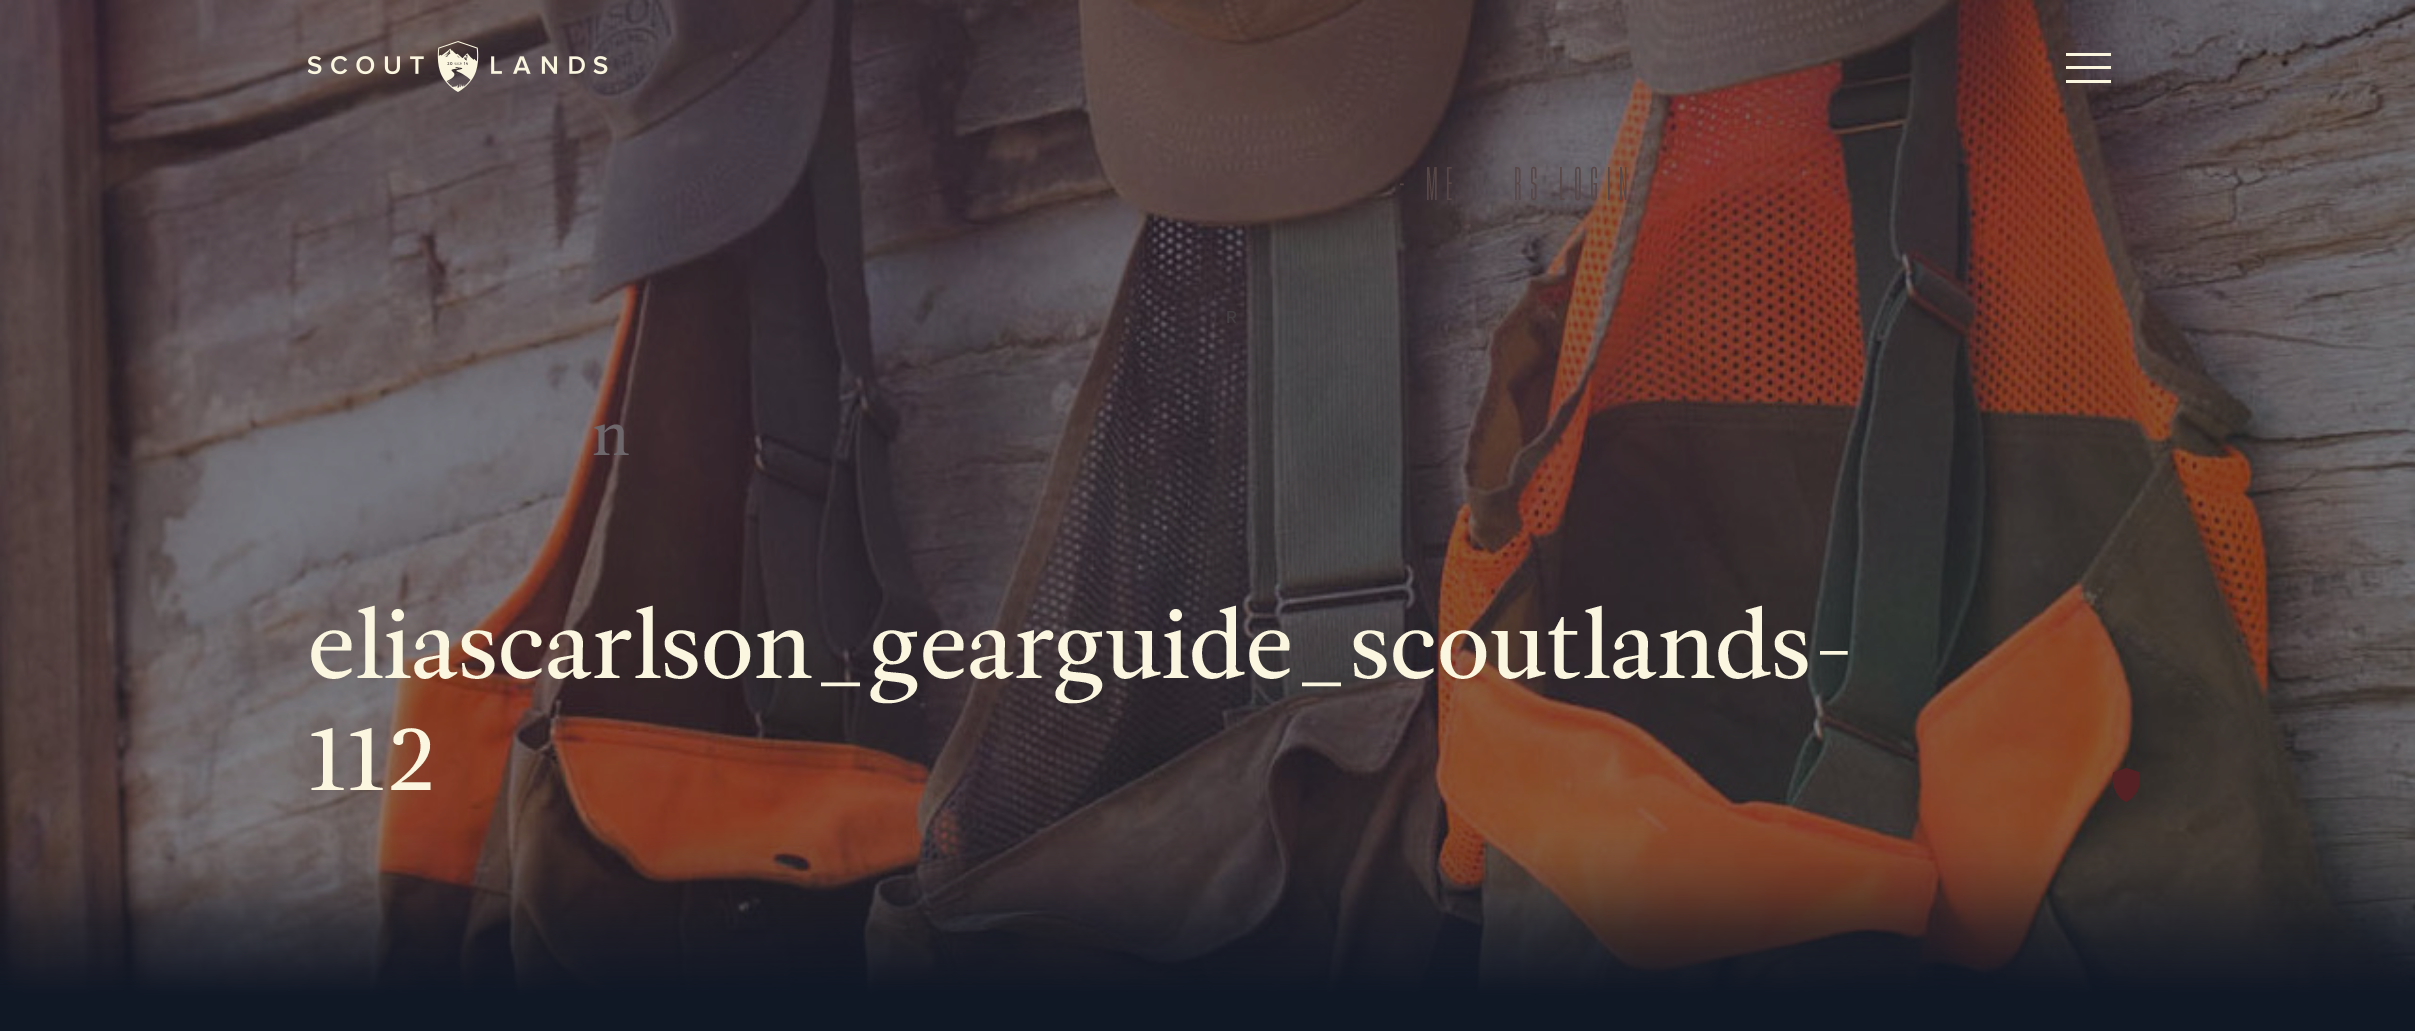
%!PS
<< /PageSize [2415 1031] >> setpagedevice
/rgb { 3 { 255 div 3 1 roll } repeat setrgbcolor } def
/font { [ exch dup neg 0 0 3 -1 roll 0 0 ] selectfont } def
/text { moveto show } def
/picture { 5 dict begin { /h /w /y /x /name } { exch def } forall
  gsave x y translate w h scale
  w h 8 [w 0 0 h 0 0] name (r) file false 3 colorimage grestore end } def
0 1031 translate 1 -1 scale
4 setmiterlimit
255 255 255 rgb
0 0 2415 1031 rectfill
(img_02.rgb) 0 0 2415 1031 picture
(img_01.rgb) 308 41 300 51 picture
250 246 223 rgb
2066 53 45 3 rectfill
2066 66 45 3 rectfill
2066 80 45 3 rectfill
85 33 37 rgb
2139.5 772.5 moveto -13 -4.5 rlineto -13.5 4.5 rlineto -1.5 10 1 20 9 27 rcurveto 4 2.5 rlineto 5.5 -3.5 rlineto 4 -5 rlineto 4.5 -6 5 -14 4 -21 rcurveto closepath eofill
/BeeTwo-Regular 50 font
88 71 71 rgb
1399 200 moveto 8.75 0 (- ME) ashow
1514 200 moveto 8.75 0 (RS LOGIN) ashow
/ProximaNova-Medium 18 font
68 63 66 rgb
1226 323 moveto 2 0 (R) ashow
/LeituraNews-Regular 60 font
110 104 109 rgb
(n) 592 455 text
/LeituraNews-Regular 93.75 font
250 246 223 rgb
(eliascarlson_gearguide_scoutlands-) 308 678 text
(112) 308 790 text
showpage
